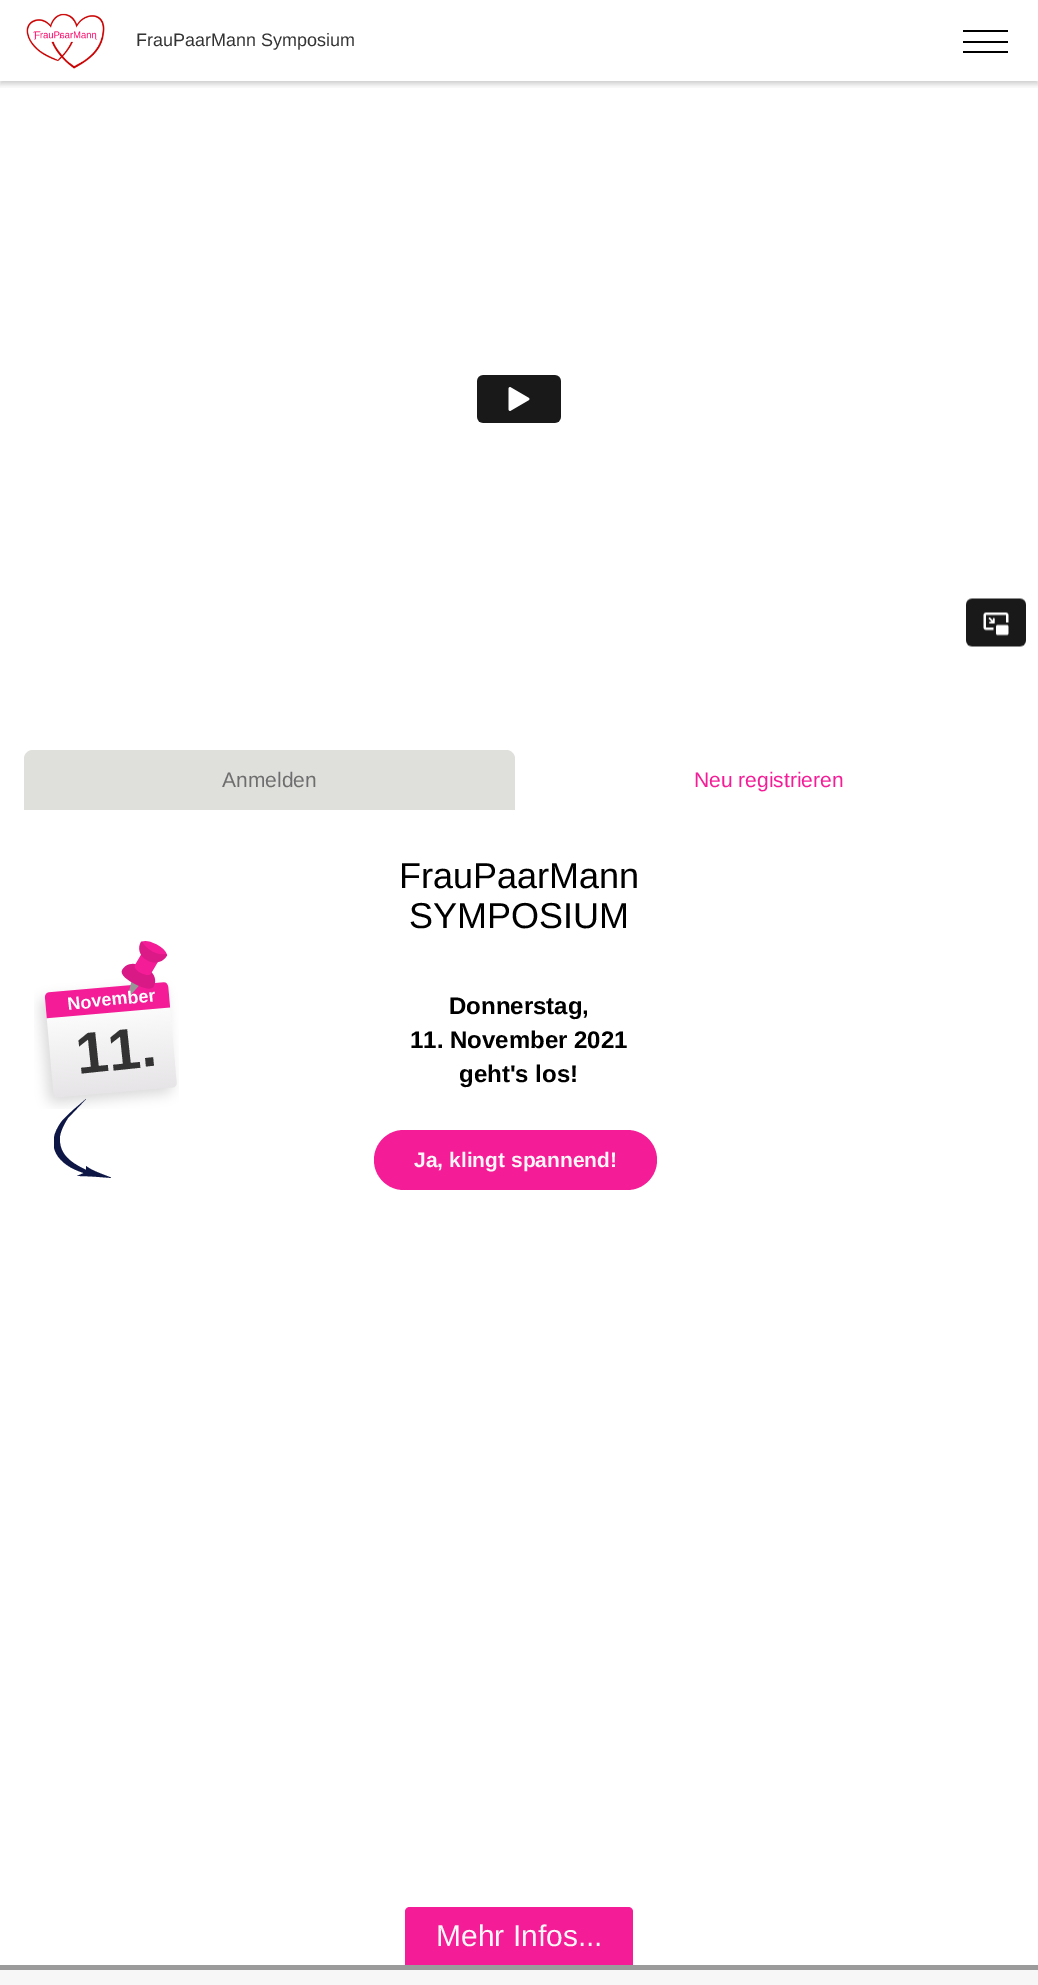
%!PS
<< /PageSize [1038 1985] /PageUsesTransparency true >> setpagedevice
/rgb { 3 { 255 div 3 1 roll } repeat setrgbcolor } def
/font { [ exch dup neg 0 0 3 -1 roll 0 0 ] selectfont } def
/text { moveto show } def
/alpha { dup .setfillconstantalpha .setstrokeconstantalpha } def
/roundrect { 5 dict begin { /r /h /w /y /x } { exch def } forall
  x r add y moveto x w add y 2 copy h add r arct x w add y h add x 1 index r arct
  x y h add x y r arct x y 2 copy exch w add exch r arct closepath end } def
/shadow { 12 dict begin { /a /b /q /h /w /y /x } { exch def } forall gsave /was 0 def
  9 -2 -9 { dup b mul 4 div /e exch def 1 sub .425 mul 2.718 exch exp 1 add a .99 .min exch div /now exch def
    1 1 now sub 1 was sub div sub alpha /was now def
    w h .min e 2 mul add 0 gt { x e sub y e sub w e 2 mul add h e 2 mul add
      q e add b .6 mul add w h .min 2 div e add .min 0 .max roundrect fill } if } for grestore end } def
/picture { 5 dict begin { /h /w /y /x /name } { exch def } forall
  gsave x y translate w h scale
  w h 8 [w 0 0 h 0 0] name (r) file false 3 colorimage grestore end } def
0 .pushpdf14devicefilter
0 1985 translate 1 -1 scale
4 setmiterlimit
255 255 255 rgb
0 0 1038 1985 rectfill
gsave
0 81 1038 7 rectclip
0 0 0 rgb
0 3 1038 81 0 3 0.2 shadow
grestore
(img_01.rgb) 26 13 79 56 picture
0 0 0 rgb
963 30 45 2 rectfill
963 41 45 2 rectfill
963 51 45 2 rectfill
(img_02.rgb) 477 375 549 272 picture
223 224 219 rgb
33 750 moveto 473 0 rlineto 5 0 9 4 9 9 rcurveto 0 51 rlineto -491 0 rlineto 0 -51 rlineto 0 -5 4 -9 9 -9 rcurveto closepath fill
(img_03.rgb) 34 941 145 168 picture
gsave
54 1098 57 81 rectclip
13 22 69 rgb
78 1176 moveto 11 0 22 1 34 2 rcurveto -7 -3 -20 -7 -26 -12 rcurveto 0 4 rlineto -14 -7 -28 -15 -26 -34 rcurveto 1 -6 4 -12 8 -18 rcurveto 18 -19 rlineto -8 7 -17 14 -24 22 rcurveto -19 25 -4 44 22 52 rcurveto -7 3 rlineto closepath eofill
grestore
244 29 151 rgb
374 1130 283 60 30 roundrect fill
155 155 155 rgb
0 1965 1038 5 rectfill
244 29 151 rgb
410 1907 moveto 218 0 rlineto 3 0 5 2 5 5 rcurveto 0 53 rlineto -228 0 rlineto 0 -53 rlineto 0 -3 2 -5 5 -5 rcurveto closepath fill
247 247 247 rgb
0 1970 1038 15 rectfill
/LiberationSans-Regular 18 font
51 51 51 rgb
(FrauPaarMann Symposium) 136 46 text
/LiberationSans-Regular 21 font
110 110 110 rgb
(Anmelden) 222 787 text
244 29 151 rgb
(Neu registrieren) 694 787 text
/LiberationSans-Regular 36 font
0 0 0 rgb
(FrauPaarMann) 399 888 text
(SYMPOSIUM) 409 928 text
/LiberationSans-Bold 18 font
255 255 255 rgb
gsave 68 1010 translate -6 rotate 0 0 moveto (November) show grestore
/LiberationSans-Bold 58 font
51 51 51 rgb
gsave 78 1074 translate -6 rotate 0 0 moveto (11.) show grestore
/LiberationSans-Bold 24 font
0 0 0 rgb
(Donnerstag,) 449 1014 text
(11. November 2021) 410 1048 text
(geht's los!) 459 1082 text
/LiberationSans-Bold 21 font
255 247 247 rgb
(Ja, klingt spannend!) 414 1167 text
/LiberationSans-Regular 30 font
(Mehr Infos...) 436 1946 text
.poppdf14devicefilter showpage
